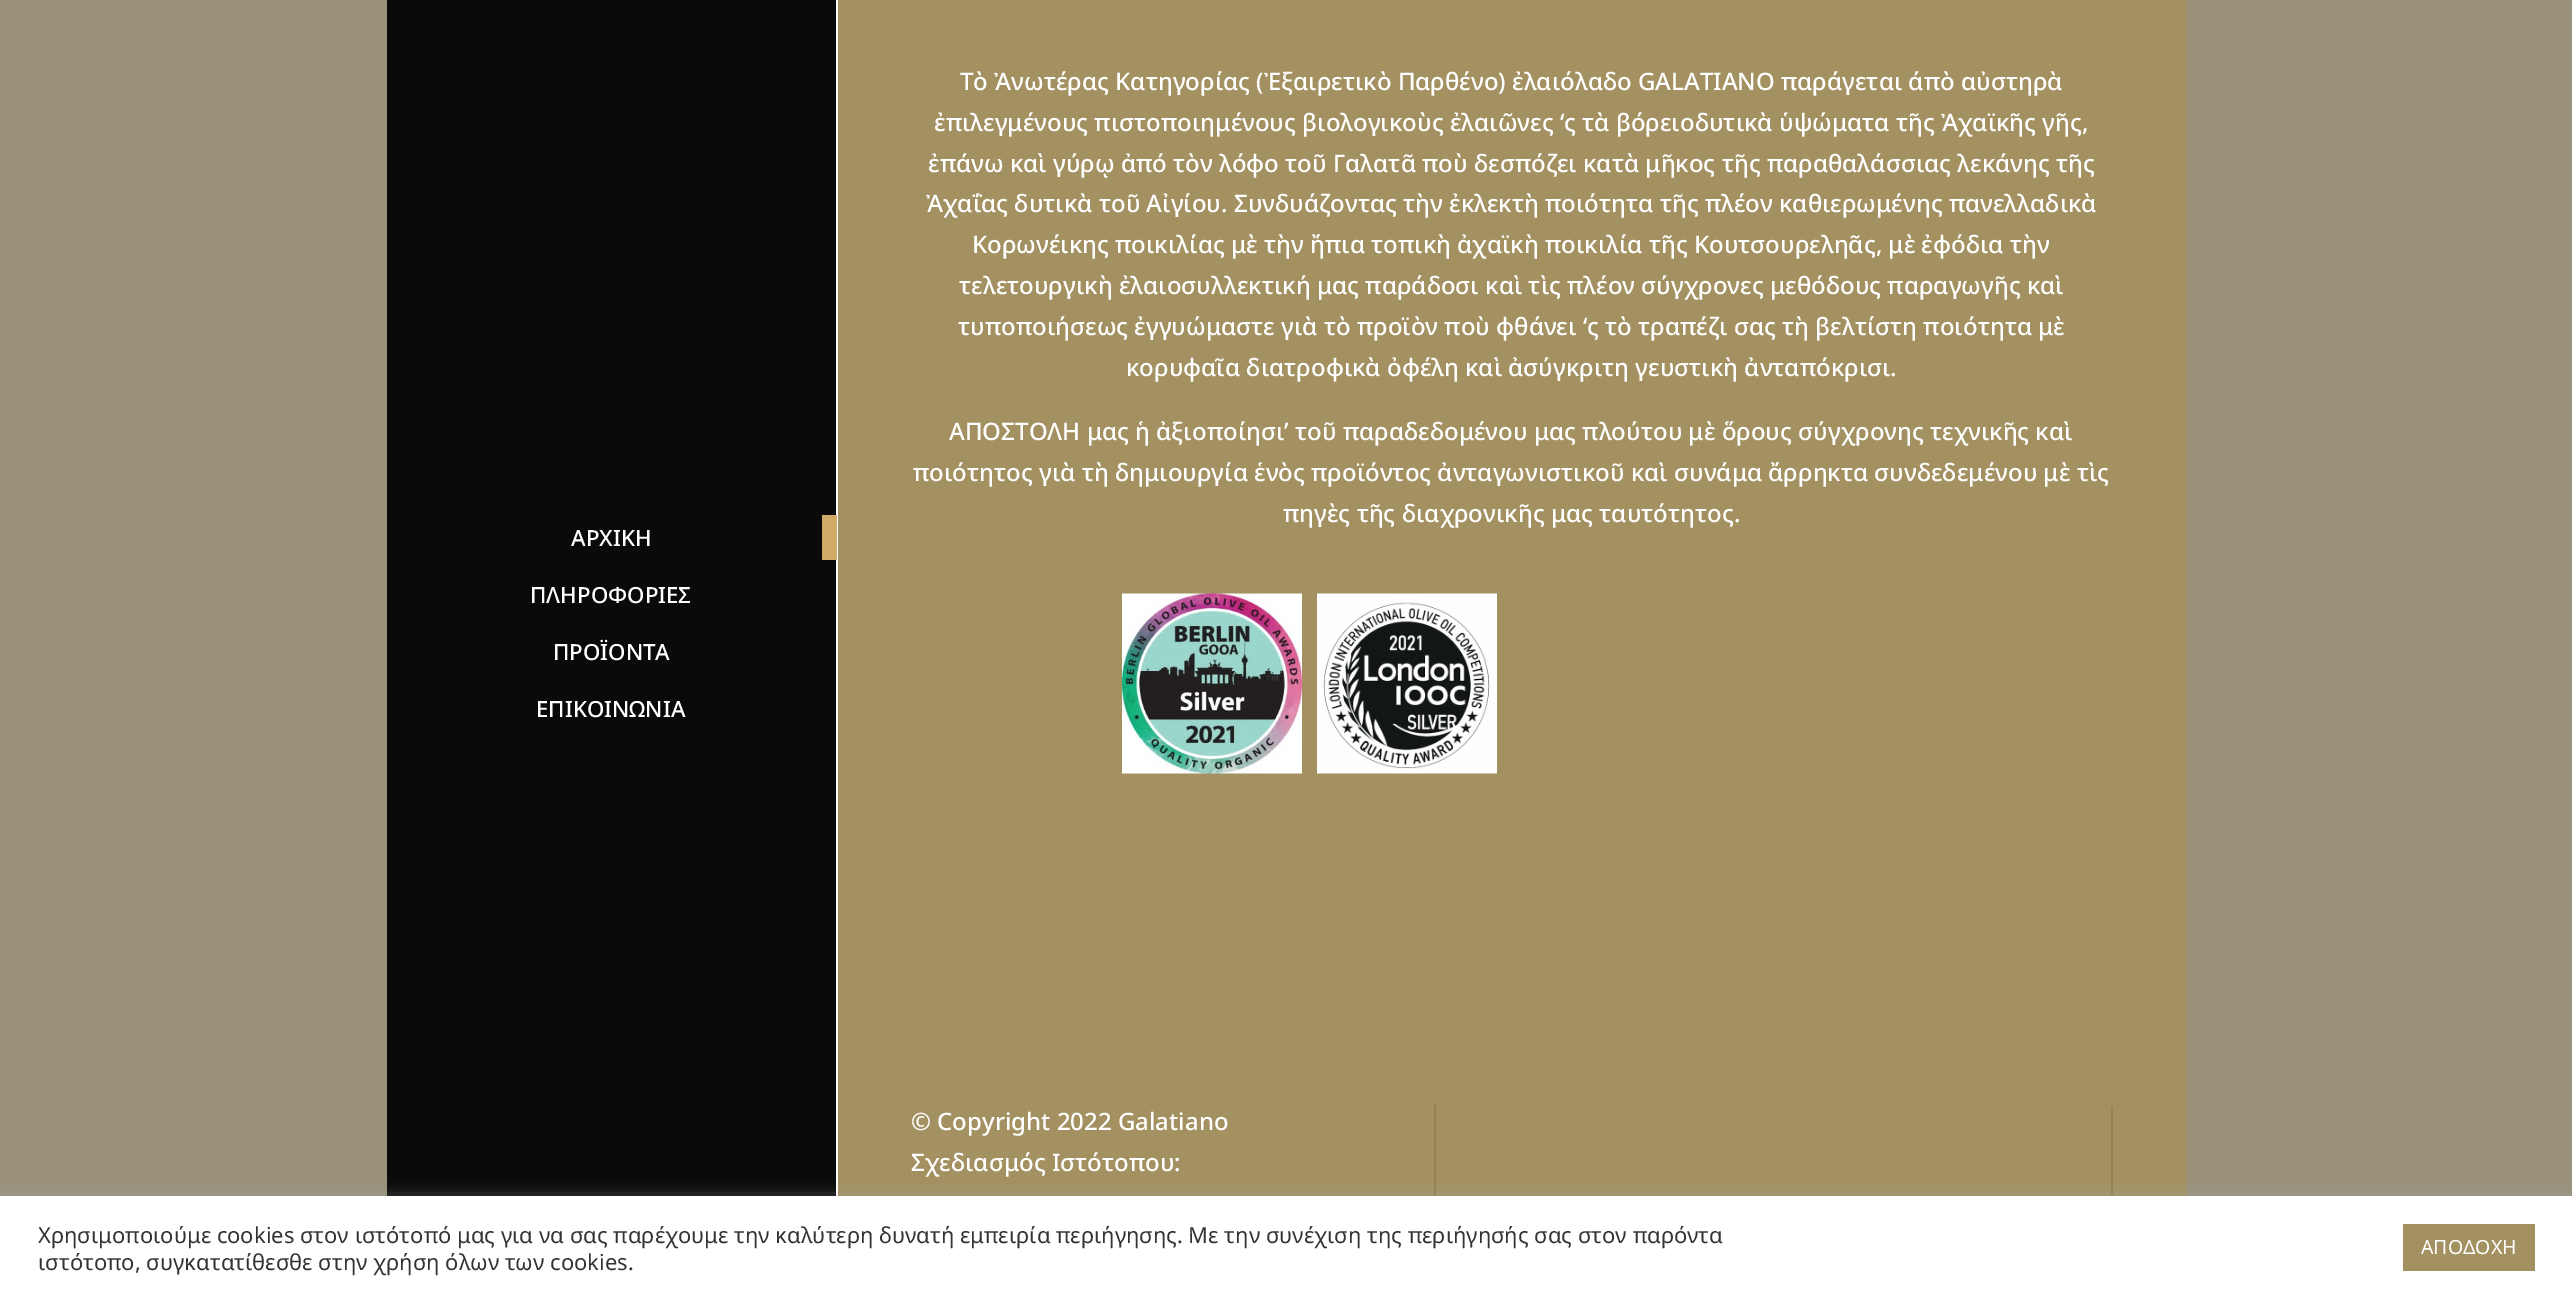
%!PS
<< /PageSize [2572 1298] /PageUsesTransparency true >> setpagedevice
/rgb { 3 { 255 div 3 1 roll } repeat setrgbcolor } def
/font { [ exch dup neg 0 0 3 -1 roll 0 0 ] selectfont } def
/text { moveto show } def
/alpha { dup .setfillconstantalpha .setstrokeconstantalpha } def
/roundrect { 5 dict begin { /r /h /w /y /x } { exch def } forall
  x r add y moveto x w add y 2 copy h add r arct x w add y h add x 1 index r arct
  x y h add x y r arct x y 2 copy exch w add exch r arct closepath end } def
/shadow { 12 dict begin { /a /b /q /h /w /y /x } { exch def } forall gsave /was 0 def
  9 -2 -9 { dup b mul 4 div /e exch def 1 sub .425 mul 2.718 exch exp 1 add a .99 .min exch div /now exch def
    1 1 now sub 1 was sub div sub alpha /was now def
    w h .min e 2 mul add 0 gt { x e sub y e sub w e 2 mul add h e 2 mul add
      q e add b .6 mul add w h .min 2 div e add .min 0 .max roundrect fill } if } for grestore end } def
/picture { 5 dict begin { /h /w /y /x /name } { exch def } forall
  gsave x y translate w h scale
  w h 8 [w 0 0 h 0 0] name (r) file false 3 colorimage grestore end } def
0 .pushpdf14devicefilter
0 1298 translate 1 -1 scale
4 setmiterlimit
153 145 122 rgb
0 0 2572 1298 rectfill
10 10 10 rgb
387 0 449 1196 rectfill
255 255 255 rgb
836 0 2 1196 rectfill
209 171 102 rgb
822 515 15 45 rectfill
0.1 alpha
0 0 0 rgb
684 587 2 130 rectfill
1 alpha
163 145 97 rgb
838 0 1349 1196 rectfill
(img_01.rgb) 1122 593 180 181 picture
(img_02.rgb) 1317 593 180 181 picture
147 131 87 rgb
1434 1103 2 93 rectfill
2111 1106 2 90 rectfill
172 171 171 rgb
0 1194 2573 104 0 7.5 0.3 shadow
255 255 255 rgb
0 1196 2572 102 rectfill
163 145 97 rgb
2403 1224 132 47 rectfill
/NotoSans-Medium 22.25 font
255 255 255 rgb
(ΑΡΧΙΚΗ) 571 546 text
(ΠΛΗΡΟΦΟΡΙΕΣ) 530 603 text
(ΠΡΟΪΟΝΤΑ) 553 660 text
(ΕΠΙΚΟΙΝΩΝΙΑ) 536 717 text
/NotoSans-Medium 24 font
(Τὸ Ἀνωτέρας Κατηγορίας \(Ἐξαιρετικὸ Παρθένο\) ἐλαιόλαδο GALATIANO παράγεται άπὸ αὐστηρὰ) 960 90 text
(ἐπιλεγμένους πιστοποιημένους βιολογικοὺς ἐλαιῶνες ‘ς τὰ βόρειοδυτικὰ ὑψώματα τῆς Ἀχαϊκῆς γῆς,) 934 131 text
(ἐπάνω καὶ γύρῳ ἀπό τὸν λόφο τοῦ Γαλατᾶ ποὺ δεσπόζει κατὰ μῆκος τῆς παραθαλάσσιας λεκάνης τῆς) 928 172 text
(Ἀχαΐας δυτικὰ τοῦ Αἰγίου. Συνδυάζοντας τὴν ἐκλεκτὴ ποιότητα τῆς πλέον καθιερωμένης πανελλαδικὰ) 926 212 text
(Κορωνέικης ποικιλίας μὲ τὴν ἤπια τοπικὴ ἀχαϊκὴ ποικιλία τῆς Κουτσουρεληᾶς, μὲ ἐφόδια τὴν) 972 253 text
(τελετουργικὴ ἐλαιοσυλλεκτική μας παράδοσι καὶ τὶς πλέον σύγχρονες μεθόδους παραγωγῆς καὶ) 959 294 text
(τυποποιήσεως ἐγγυώμαστε γιὰ τὸ προϊὸν ποὺ φθάνει ‘ς τὸ τραπέζι σας τὴ βελτίστη ποιότητα μὲ) 958 335 text
(κορυφαῖα διατροφικὰ ὀφέλη καὶ ἀσύγκριτη γευστικὴ ἀνταπόκρισι.) 1126 376 text
(ΑΠΟΣΤΟΛΗ μας ἡ ἀξιοποίησι’ τοῦ παραδεδομένου μας πλούτου μὲ ὅρους σύγχρονης τεχνικῆς καὶ) 949 440 text
(ποιότητος γιὰ τὴ δημιουργία ἑνὸς προϊόντος ἀνταγωνιστικοῦ καὶ συνάμα ἄρρηκτα συνδεδεμένου μὲ τὶς) 913 481 text
(πηγὲς τῆς διαχρονικῆς μας ταυτότητος.) 1283 522 text
(© Copyright 2022 Galatiano) 911 1130 text
(Σχεδιασμός Ιστότοπου:) 911 1171 text
/NotoSans-Regular 22 font
51 51 51 rgb
(Χρησιμοποιούμε cookies στον ιστότοπό μας για να σας παρέχουμε την καλύτερη δυνατή εμπειρία περιήγησης. Με την συνέχιση της περιήγησής σας στον παρόντα) 38 1243 text
(ιστότοπο, συγκατατίθεσθε στην χρήση όλων των cookies.) 38 1270 text
/NotoSans-Regular 19.5 font
255 255 255 rgb
(ΑΠΟΔΟΧΗ) 2421 1254 text
.poppdf14devicefilter showpage
